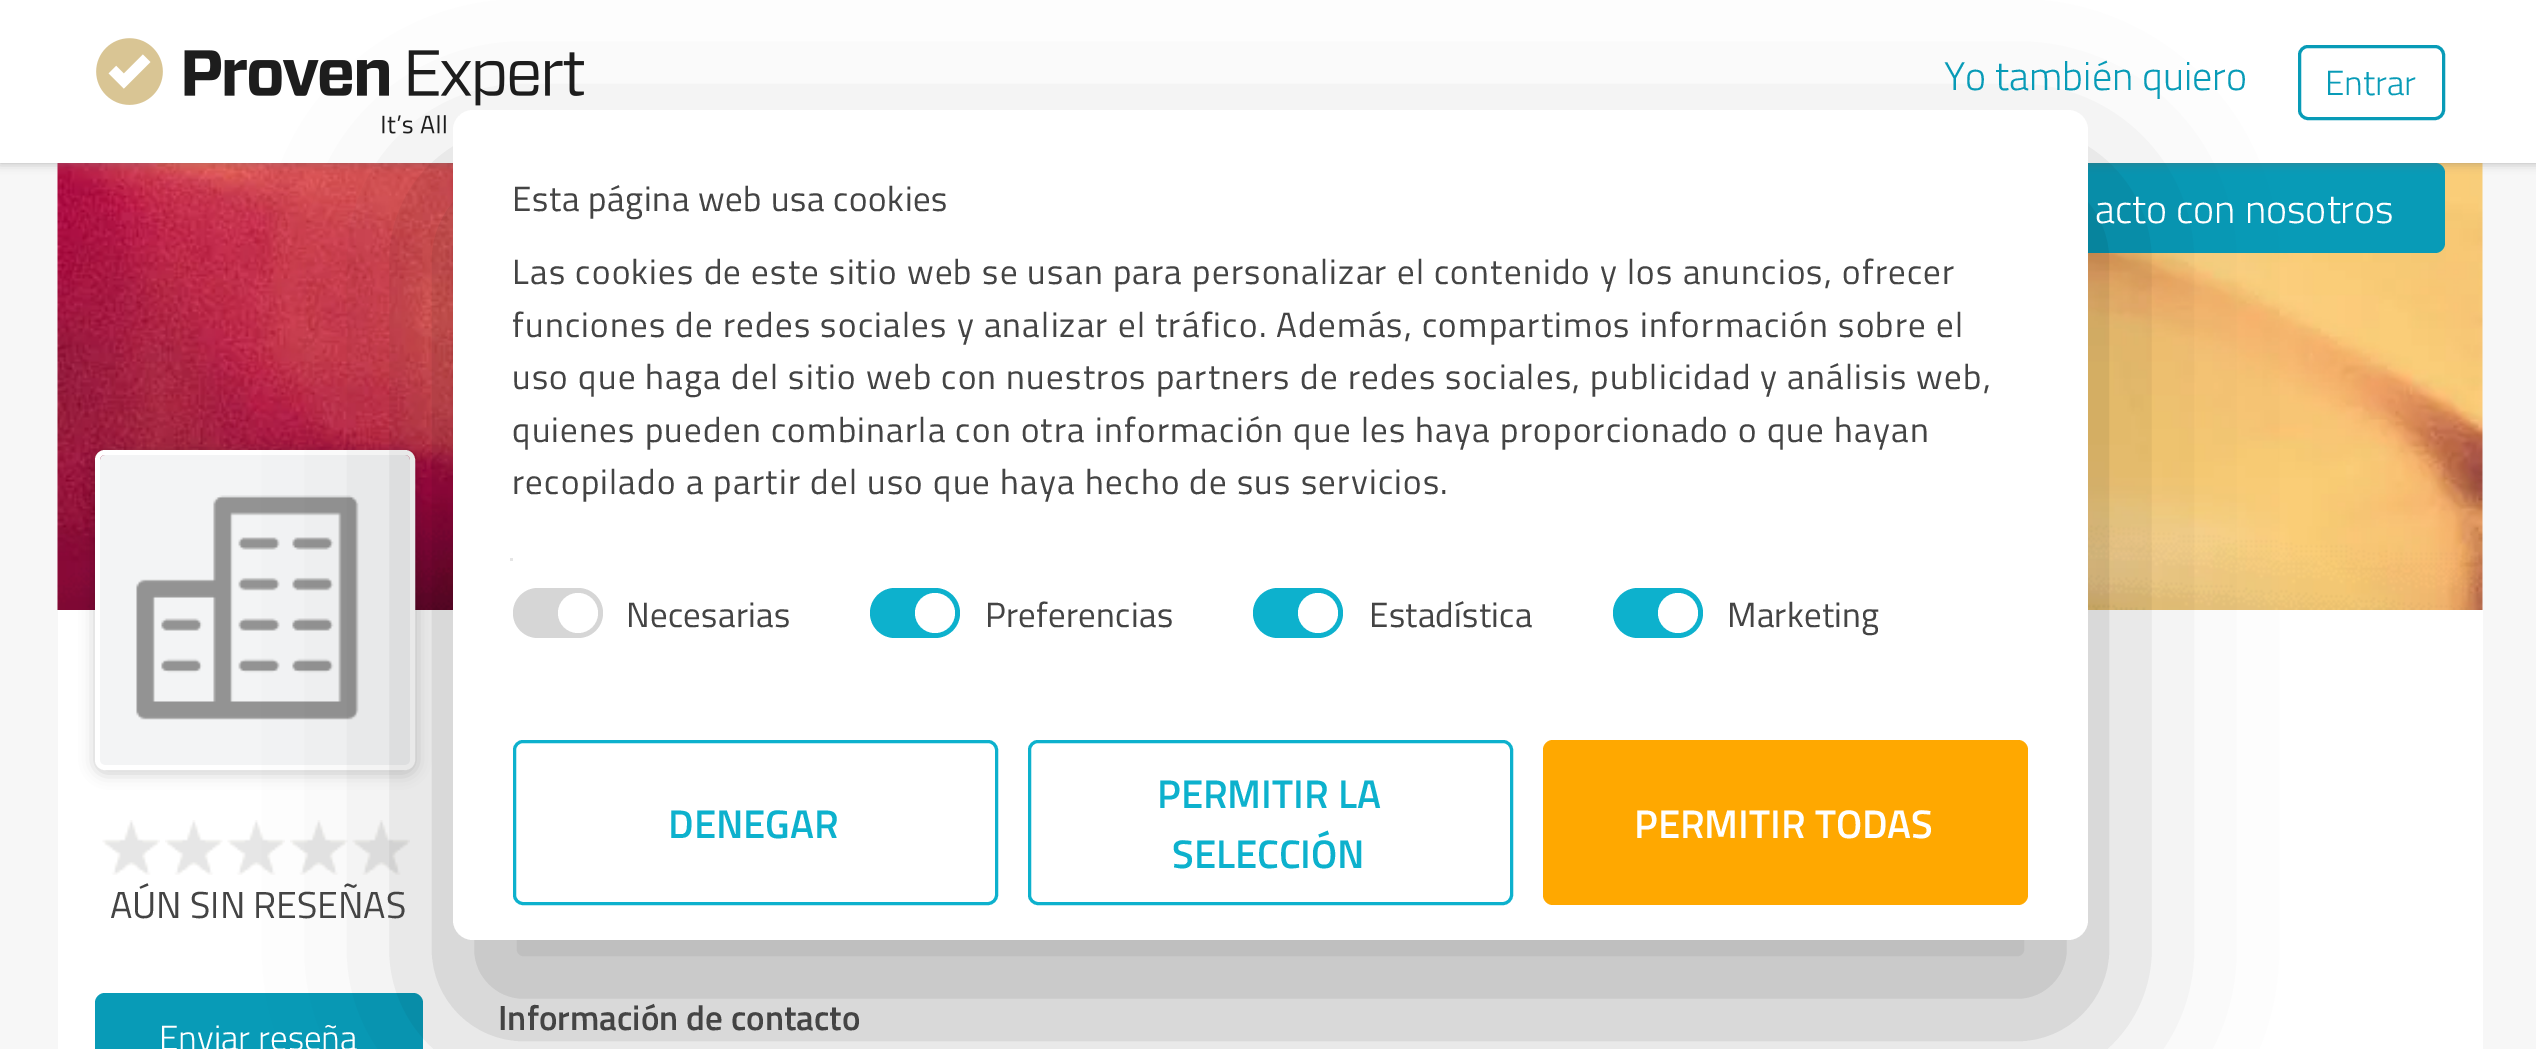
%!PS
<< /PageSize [2536 1049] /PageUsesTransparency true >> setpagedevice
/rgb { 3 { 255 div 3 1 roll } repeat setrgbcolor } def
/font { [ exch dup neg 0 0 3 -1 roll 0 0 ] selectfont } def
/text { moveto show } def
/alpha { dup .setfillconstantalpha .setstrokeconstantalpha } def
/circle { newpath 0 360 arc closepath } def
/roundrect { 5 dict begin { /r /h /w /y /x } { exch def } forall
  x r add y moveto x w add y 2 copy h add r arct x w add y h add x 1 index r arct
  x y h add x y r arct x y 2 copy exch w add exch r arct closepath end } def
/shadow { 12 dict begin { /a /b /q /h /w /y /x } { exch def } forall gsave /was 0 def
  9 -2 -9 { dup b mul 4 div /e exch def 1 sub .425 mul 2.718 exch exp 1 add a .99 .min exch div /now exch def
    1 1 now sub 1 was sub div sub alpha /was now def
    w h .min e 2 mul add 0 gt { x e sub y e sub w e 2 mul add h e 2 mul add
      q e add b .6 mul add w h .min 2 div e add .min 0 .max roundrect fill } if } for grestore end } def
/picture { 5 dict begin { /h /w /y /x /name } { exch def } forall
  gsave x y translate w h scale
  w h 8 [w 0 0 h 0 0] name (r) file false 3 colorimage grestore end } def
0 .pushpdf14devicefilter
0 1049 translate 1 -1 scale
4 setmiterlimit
247 247 247 rgb
0 0 2536 1049 rectfill
(img_02.rgb) 57 163 2426 447 picture
8 155 183 rgb
1763 163 682 90 10 roundrect fill
105 105 105 rgb
0 0 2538 163 0 5 0.5 shadow
255 255 255 rgb
0 0 2536 163 rectfill
(img_01.rgb) 96 38 488 96 picture
8 155 183 rgb
3 setlinewidth
2299.5 46.5 144 72 8.5 roundrect stroke
(img_03.rgb) 57 496 2425 114 picture
255 255 255 rgb
58 610 2425 439 rectfill
0 0 0 rgb
95 453 320 320 10 7.5 0.2 shadow
255 255 255 rgb
5 setlinewidth
97.5 452.5 315 315 7.5 roundrect stroke
(img_04.rgb) 100 455 310 310 picture
(img_06.rgb) 165 820 58 55 picture
(img_05.rgb) 227 820 58 55 picture
(img_07.rgb) 290 820 58 55 picture
(img_08.rgb) 352 820 58 55 picture
8 155 183 rgb
95 993 328 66 10 roundrect fill
0 0 0 rgb
453 190 1635 830 20 85 0.3 shadow
255 255 255 rgb
453 110 1635 830 20 roundrect fill
229 229 229 rgb
510 558 3 3 rectfill
214 214 214 rgb
513 588 90 50 25 roundrect fill
255 255 255 rgb
578 613 20 circle fill
13 177 205 rgb
870 588 90 50 25 roundrect fill
255 255 255 rgb
935 613 20 circle fill
13 177 205 rgb
1253 588 90 50 25 roundrect fill
255 255 255 rgb
1318 613 20 circle fill
13 177 205 rgb
1613 588 90 50 25 roundrect fill
255 255 255 rgb
1678 613 20 circle fill
13 177 205 rgb
3 setlinewidth
514.5 741.5 482 162 8.5 roundrect stroke
1029.5 741.5 482 162 8.5 roundrect stroke
255 168 0 rgb
1543 740 485 165 10 roundrect fill
(img_05.rgb) 102 820 58 55 picture
/TitilliumWeb-Light 40 font
8 155 183 rgb
(Yo también quiero) 1944 90 text
/TitilliumWeb-Light 35 font
(Entrar) 2325 95 text
/TitilliumWeb-Regular 35 font
68 68 68 rgb
512 211 moveto 0.6 0 (Esta página web usa cookies) ashow
512 284 moveto 1.25 0 (Las cookies de este sitio web se usan para personalizar el contenido y los anuncios, ofrecer) ashow
512 337 moveto 1.25 0 (funciones de redes sociales y analizar el tráfico. Además, compartimos información sobre el) ashow
512 389 moveto 1.25 0 (uso que haga del sitio web con nuestros partners de redes sociales, publicidad y análisis web,) ashow
512 442 moveto 1.25 0 (quienes pueden combinarla con otra información que les haya proporcionado o que hayan) ashow
512 494 moveto 1.25 0 (recopilado a partir del uso que haya hecho de sus servicios.) ashow
626 627 moveto 0.25 0 (Necesarias) ashow
985 627 moveto 0.25 0 (Preferencias) ashow
1369 627 moveto 0.25 0 (Estadística) ashow
1727 627 moveto 0.25 0 (Marketing) ashow
/TitilliumWeb-SemiBold 40 font
13 177 205 rgb
(DENEGAR) 668 838 text
(PERMITIR LA) 1157 808 text
(SELECCIÓN) 1172 868 text
255 255 255 rgb
(PERMITIR TODAS) 1634 838 text
/TitilliumWeb-Light 40 font
(acto con nosotros) 2095 223 text
/TitilliumWeb-Regular 37.5 font
68 68 68 rgb
(AÚN SIN RESEÑAS) 110 918 text
/TitilliumWeb-Light 35 font
255 255 255 rgb
(Enviar reseña) 159 1050 text
/TitilliumWeb-SemiBold 35 font
68 68 68 rgb
(Información de contacto) 498 1030 text
.poppdf14devicefilter showpage
